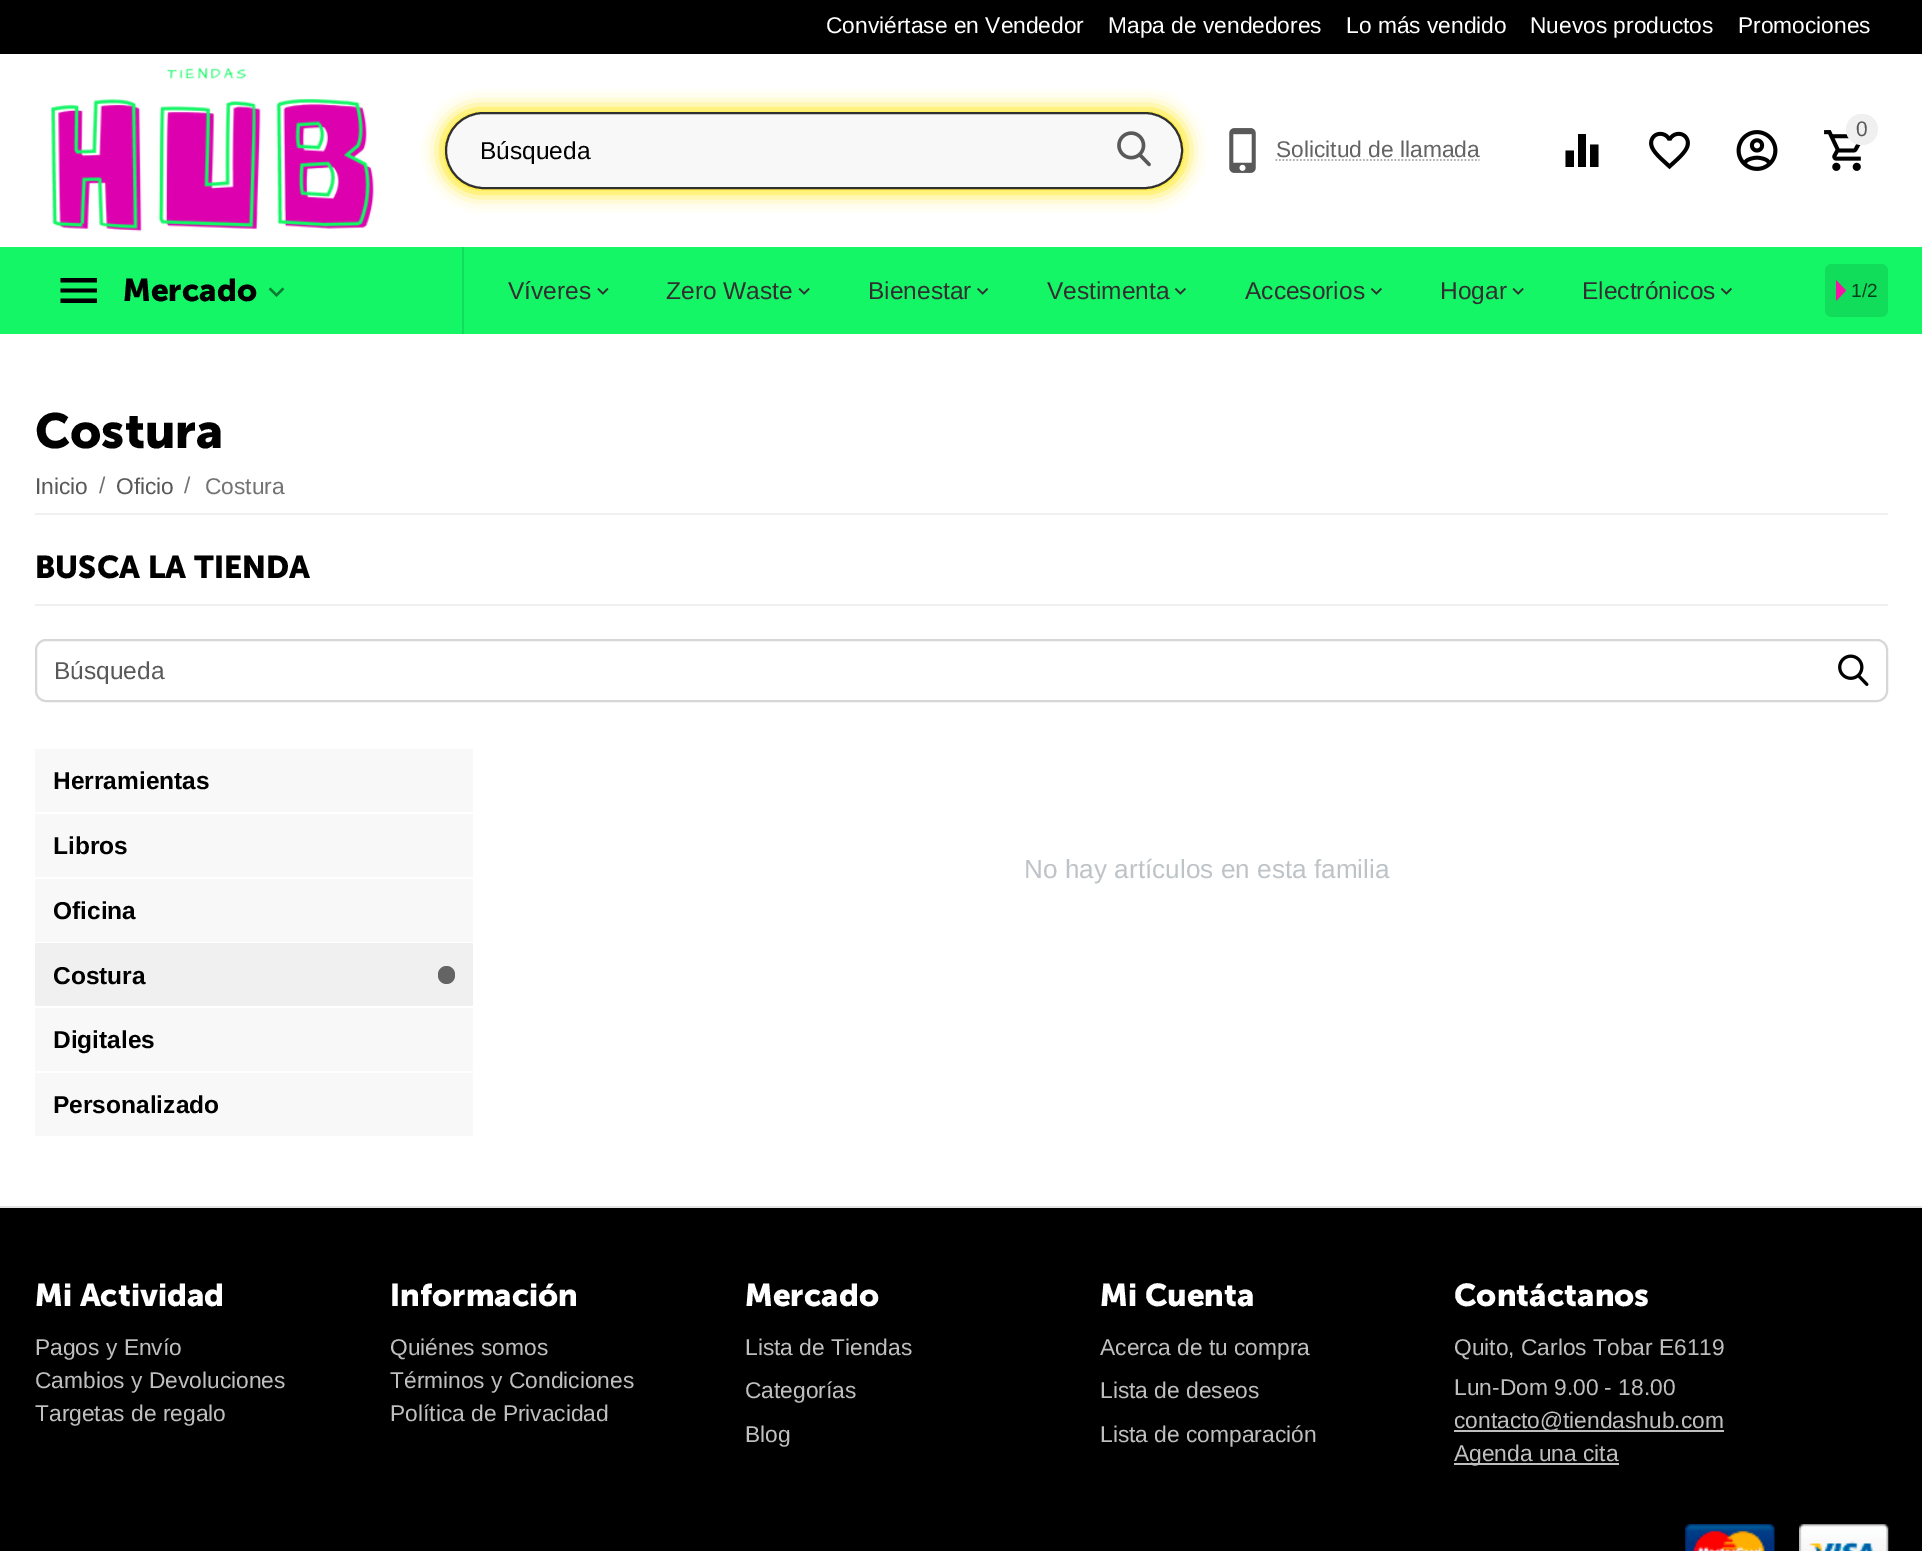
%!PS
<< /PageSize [1922 1551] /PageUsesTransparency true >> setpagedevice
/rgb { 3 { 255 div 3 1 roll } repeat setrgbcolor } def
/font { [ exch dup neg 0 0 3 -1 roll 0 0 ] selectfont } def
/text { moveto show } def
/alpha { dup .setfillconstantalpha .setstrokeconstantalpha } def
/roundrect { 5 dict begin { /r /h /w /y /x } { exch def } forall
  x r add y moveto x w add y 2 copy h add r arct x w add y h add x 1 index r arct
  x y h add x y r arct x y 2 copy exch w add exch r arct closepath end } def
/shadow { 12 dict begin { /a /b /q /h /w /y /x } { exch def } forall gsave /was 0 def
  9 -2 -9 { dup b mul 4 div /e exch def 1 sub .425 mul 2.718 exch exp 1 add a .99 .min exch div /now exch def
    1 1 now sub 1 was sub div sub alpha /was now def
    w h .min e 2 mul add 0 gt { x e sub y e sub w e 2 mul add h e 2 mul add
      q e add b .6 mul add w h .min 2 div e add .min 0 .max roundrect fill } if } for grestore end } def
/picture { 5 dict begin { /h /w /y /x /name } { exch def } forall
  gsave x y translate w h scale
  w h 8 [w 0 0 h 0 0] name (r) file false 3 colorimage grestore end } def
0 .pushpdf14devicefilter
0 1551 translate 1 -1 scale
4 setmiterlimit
255 255 255 rgb
0 0 1922 1551 rectfill
0 0 0 rgb
0 0 1922 54 rectfill
(img_01.rgb) 50 67 324 165 picture
1578 167 moveto 8 0 rlineto 0 -33 rlineto -8 0 rlineto closepath 1565.5 167 moveto 8.5 0 rlineto 0 -16.5 rlineto -8.5 0 rlineto closepath 1590 144.5 moveto 0 22.5 rlineto 8.5 0 rlineto 0 -22.5 rlineto closepath fill
(img_02.rgb) 1649 131 41 39 picture
(img_03.rgb) 1736 130 42 41 picture
(img_04.rgb) 1824 130 37 41 picture
240 240 240 rgb
1846 114 32 31 15.5 roundrect fill
254 230 0 rgb
441 109 746 84 42 9 1 shadow
248 248 248 rgb
446 113 736 75 37.5 roundrect gsave fill grestore
48 48 48 rgb
2 setlinewidth
stroke
(img_05.rgb) 1117 131 34 36 picture
(img_06.rgb) 1229 128 27 45 picture
177 177 177 rgb
1.8 setlinewidth
[1.75 1.75] 0 setdash
1275.5 160 moveto 204 0 rlineto stroke
20 246 101 rgb
0 247 1922 87 rectfill
18 221 91 rgb
462 247 2 87 rectfill
0 0 0 rgb
60.5 303 moveto 36.5 0 rlineto 0 -4.5 rlineto -36.5 0 rlineto closepath 60.5 292.5 moveto 36.5 0 rlineto 0 -4 rlineto -36.5 0 rlineto closepath 60.5 278 moveto 0 4.5 rlineto 36.5 0 rlineto 0 -4.5 rlineto closepath fill
(img_07.rgb) 268 287 17 10 picture
(img_08.rgb) 597 288 12 7 picture
(img_09.rgb) 798 288 12 7 picture
(img_10.rgb) 977 288 12 7 picture
(img_11.rgb) 1174 288 12 7 picture
(img_11.rgb) 1370 288 12 7 picture
(img_09.rgb) 1512 288 12 7 picture
(img_11.rgb) 1720 288 12 7 picture
18 221 91 rgb
1825 264 63 53 7 roundrect fill
246 20 165 rgb
1836 301 moveto 0 -21 rlineto 10 10.5 rlineto closepath fill
240 240 240 rgb
35 513 1853 2 rectfill
35 604 1853 2 rectfill
215 215 215 rgb
2 setlinewidth
[] 0 setdash
36 640 1851 61 10 roundrect stroke
(img_12.rgb) 1838 654 31 32 picture
248 248 248 rgb
35 749 438 387 rectfill
255 255 255 rgb
35 812 438 2 rectfill
35 877 438 2 rectfill
35 942 438 1 rectfill
240 240 240 rgb
35 943 438 63 rectfill
255 255 255 rgb
35 1006 438 2 rectfill
100 100 100 rgb
438 966 17 18 8.5 roundrect fill
255 255 255 rgb
35 1071 438 2 rectfill
0 0 0 rgb
0 1208 1922 343 rectfill
227 227 227 rgb
0 1206 1922 2 rectfill
191 191 191 rgb
1454 1430 270 2 rectfill
1454 1463 165 2 rectfill
(img_13.rgb) 1685 1524 90 27 picture
(img_14.rgb) 1799 1524 90 27 picture
/LiberationSans-Regular 22.75 font
255 255 255 rgb
(Conviértase en Vendedor) 826 33 text
(Mapa de vendedores) 1108 33 text
(Lo más vendido) 1346 33 text
(Nuevos productos) 1530 33 text
(Promociones) 1738 33 text
/LiberationSans-Regular 21 font
89 89 89 rgb
(0) 1856 136 text
/LiberationSans-Regular 24.5 font
0 0 0 rgb
(Búsqueda) 480 159 text
/LiberationSans-Regular 22.75 font
100 100 100 rgb
(Solicitud de llamada) 1276 157 text
/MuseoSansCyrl-Bold 31.5 font
0 0 0 rgb
(Mercado) 123 301 text
/LiberationSans-Regular 24.5 font
48 48 48 rgb
(Víveres) 508 299 text
(Zero Waste) 666 299 text
(Bienestar) 868 299 text
(Vestimenta) 1047 299 text
(Accesorios) 1245 299 text
(Hogar) 1440 299 text
(Electrónicos) 1582 299 text
/LiberationSans-Regular 19 font
5 66 27 rgb
(1/2) 1851 297 text
/MuseoSansCyrl-Bold 49 font
0 0 0 rgb
(Costura) 35 448 text
/LiberationSans-Regular 22.75 font
89 89 89 rgb
(Inicio) 35 494 text
115 115 115 rgb
(/) 99 493 text
89 89 89 rgb
(Oficio) 116 494 text
115 115 115 rgb
(/) 184 493 text
(Costura) 205 494 text
/MuseoSansCyrl-Bold 31.5 font
0 0 0 rgb
(BUSCA LA TIENDA) 35 578 text
/LiberationSans-Regular 24.5 font
89 89 89 rgb
(Búsqueda) 54 679 text
/LiberationSans-Bold 24.5 font
0 0 0 rgb
(Herramientas) 53 789 text
(Libros) 53 854 text
(Oficina) 53 919 text
(Costura) 53 984 text
(Digitales) 53 1048 text
(Personalizado) 53 1113 text
/LiberationSans-Regular 26.2 font
189 195 199 rgb
(No hay artículos en esta familia) 1024 878 text
/MuseoSansCyrl-Bold 31.5 font
255 255 255 rgb
(Mi Actividad) 35 1306 text
/LiberationSans-Regular 22.75 font
191 191 191 rgb
(Pagos y Envío) 35 1355 text
(Cambios y Devoluciones) 35 1388 text
(Targetas de regalo) 35 1421 text
/MuseoSansCyrl-Bold 31.5 font
255 255 255 rgb
(Información) 390 1306 text
/LiberationSans-Regular 22.75 font
191 191 191 rgb
(Quiénes somos) 390 1355 text
(Términos y Condiciones) 390 1388 text
(Política de Privacidad) 390 1421 text
/MuseoSansCyrl-Bold 31.5 font
255 255 255 rgb
(Mercado) 745 1306 text
/LiberationSans-Regular 22.75 font
191 191 191 rgb
(Lista de Tiendas) 745 1355 text
(Categorías) 745 1398 text
(Blog) 745 1442 text
/MuseoSansCyrl-Bold 31.5 font
255 255 255 rgb
(Mi Cuenta) 1100 1306 text
/LiberationSans-Regular 22.75 font
191 191 191 rgb
(Acerca de tu compra) 1100 1355 text
(Lista de deseos) 1100 1398 text
(Lista de comparación) 1100 1442 text
/MuseoSansCyrl-Bold 31.5 font
255 255 255 rgb
(Contáctanos) 1454 1306 text
/LiberationSans-Regular 22.75 font
191 191 191 rgb
(Quito, Carlos Tobar E6119) 1454 1355 text
(Lun-Dom 9.00 - 18.00) 1454 1395 text
(contacto@tiendashub.com) 1454 1428 text
(Agenda una cita) 1454 1461 text
.poppdf14devicefilter showpage
